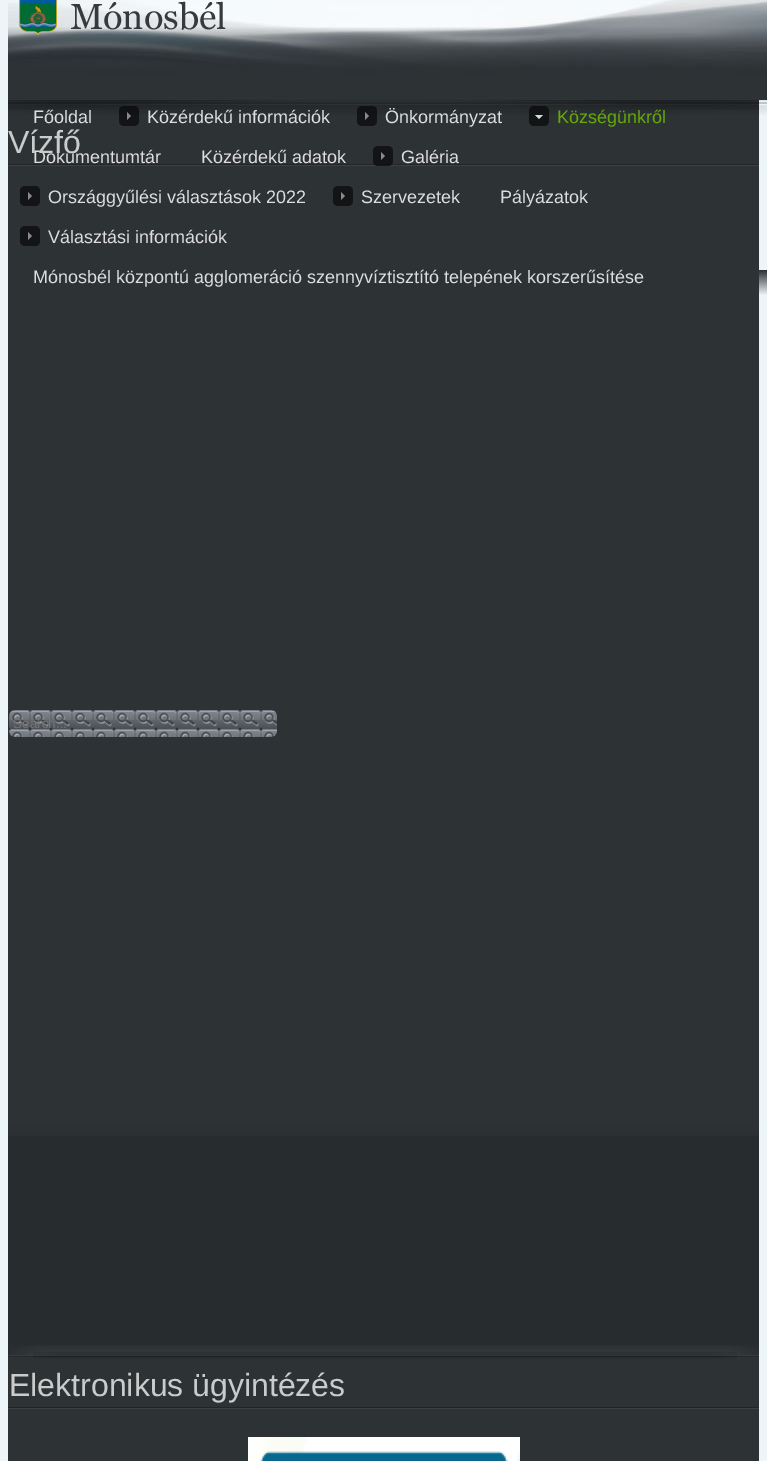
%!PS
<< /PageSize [767 1461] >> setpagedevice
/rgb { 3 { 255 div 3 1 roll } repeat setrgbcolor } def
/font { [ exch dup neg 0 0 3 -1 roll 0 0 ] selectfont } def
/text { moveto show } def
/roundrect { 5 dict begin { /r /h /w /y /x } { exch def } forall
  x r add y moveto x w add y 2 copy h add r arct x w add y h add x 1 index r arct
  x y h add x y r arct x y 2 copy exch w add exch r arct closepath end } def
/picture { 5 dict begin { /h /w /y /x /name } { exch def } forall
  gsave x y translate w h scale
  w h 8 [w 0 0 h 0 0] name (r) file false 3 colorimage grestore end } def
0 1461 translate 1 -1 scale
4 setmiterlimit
237 245 248 rgb
0 0 767 1461 rectfill
(img_01.rgb) 759 270 8 25 picture
gsave
8 0 751 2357 rectclip
33 36 39 rgb
-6.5 753.5 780 603 5.5 roundrect stroke
54 59 62 rgb
-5.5 754.5 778 601 5.5 roundrect stroke
grestore
45 50 53 rgb
8 100 751 1024 rectfill
(img_10.rgb) 8 100 751 10 picture
(img_02.rgb) 8 100 759 15 picture
(img_03.rgb) 8 0 759 95 picture
(img_04.rgb) 19 0 207 35 picture
8 95 759 5 rectfill
(img_05.rgb) 119 106 20 20 picture
(img_06.rgb) 357 106 20 20 picture
(img_07.rgb) 529 106 20 20 picture
(img_12.rgb) 8 164 751 2 picture
(img_08.rgb) 373 146 20 20 picture
(img_09.rgb) 20 186 20 20 picture
(img_09.rgb) 333 186 20 20 picture
(img_09.rgb) 20 226 20 20 picture
8 1357 751 104 rectfill
39 44 46 rgb
8 1125 751 230 rectfill
(img_11.rgb) 8 1124 751 12 picture
(img_13.rgb) 9 710 268 27 picture
(img_14.rgb) 45 1345 714 10 picture
(img_15.rgb) 10 1345 35 10 picture
(img_16.rgb) 58 1352 679 7 picture
(img_17.rgb) 33 1352 25 7 picture
(img_12.rgb) 8 1407 751 2 picture
(img_18.rgb) 248 1437 272 24 picture
/LiberationSans-Regular 18 font
221 221 221 rgb
(Főoldal) 33 123 text
(Közérdekű információk) 147 123 text
(Önkormányzat) 385 123 text
102 170 8 rgb
(Községünkről) 557 123 text
221 221 221 rgb
(Dokumentumtár) 33 163 text
(Közérdekű adatok) 201 163 text
(Galéria) 401 163 text
(Országgyűlési választások 2022) 48 203 text
(Szervezetek) 361 203 text
(Pályázatok) 500 203 text
(Választási információk) 48 243 text
(Mónosbél központú agglomeráció szennyvíztisztító telepének korszerűsítése) 33 283 text
/LiberationSans-Regular 32 font
202 203 203 rgb
(Vízfő) 8 153 text
/LiberationSans-Regular 13.5 font
117 117 117 rgb
(Search...) 13 728 text
/LiberationSans-Regular 32 font
202 203 203 rgb
(Elektronikus ügyintézés) 9 1396 text
showpage
